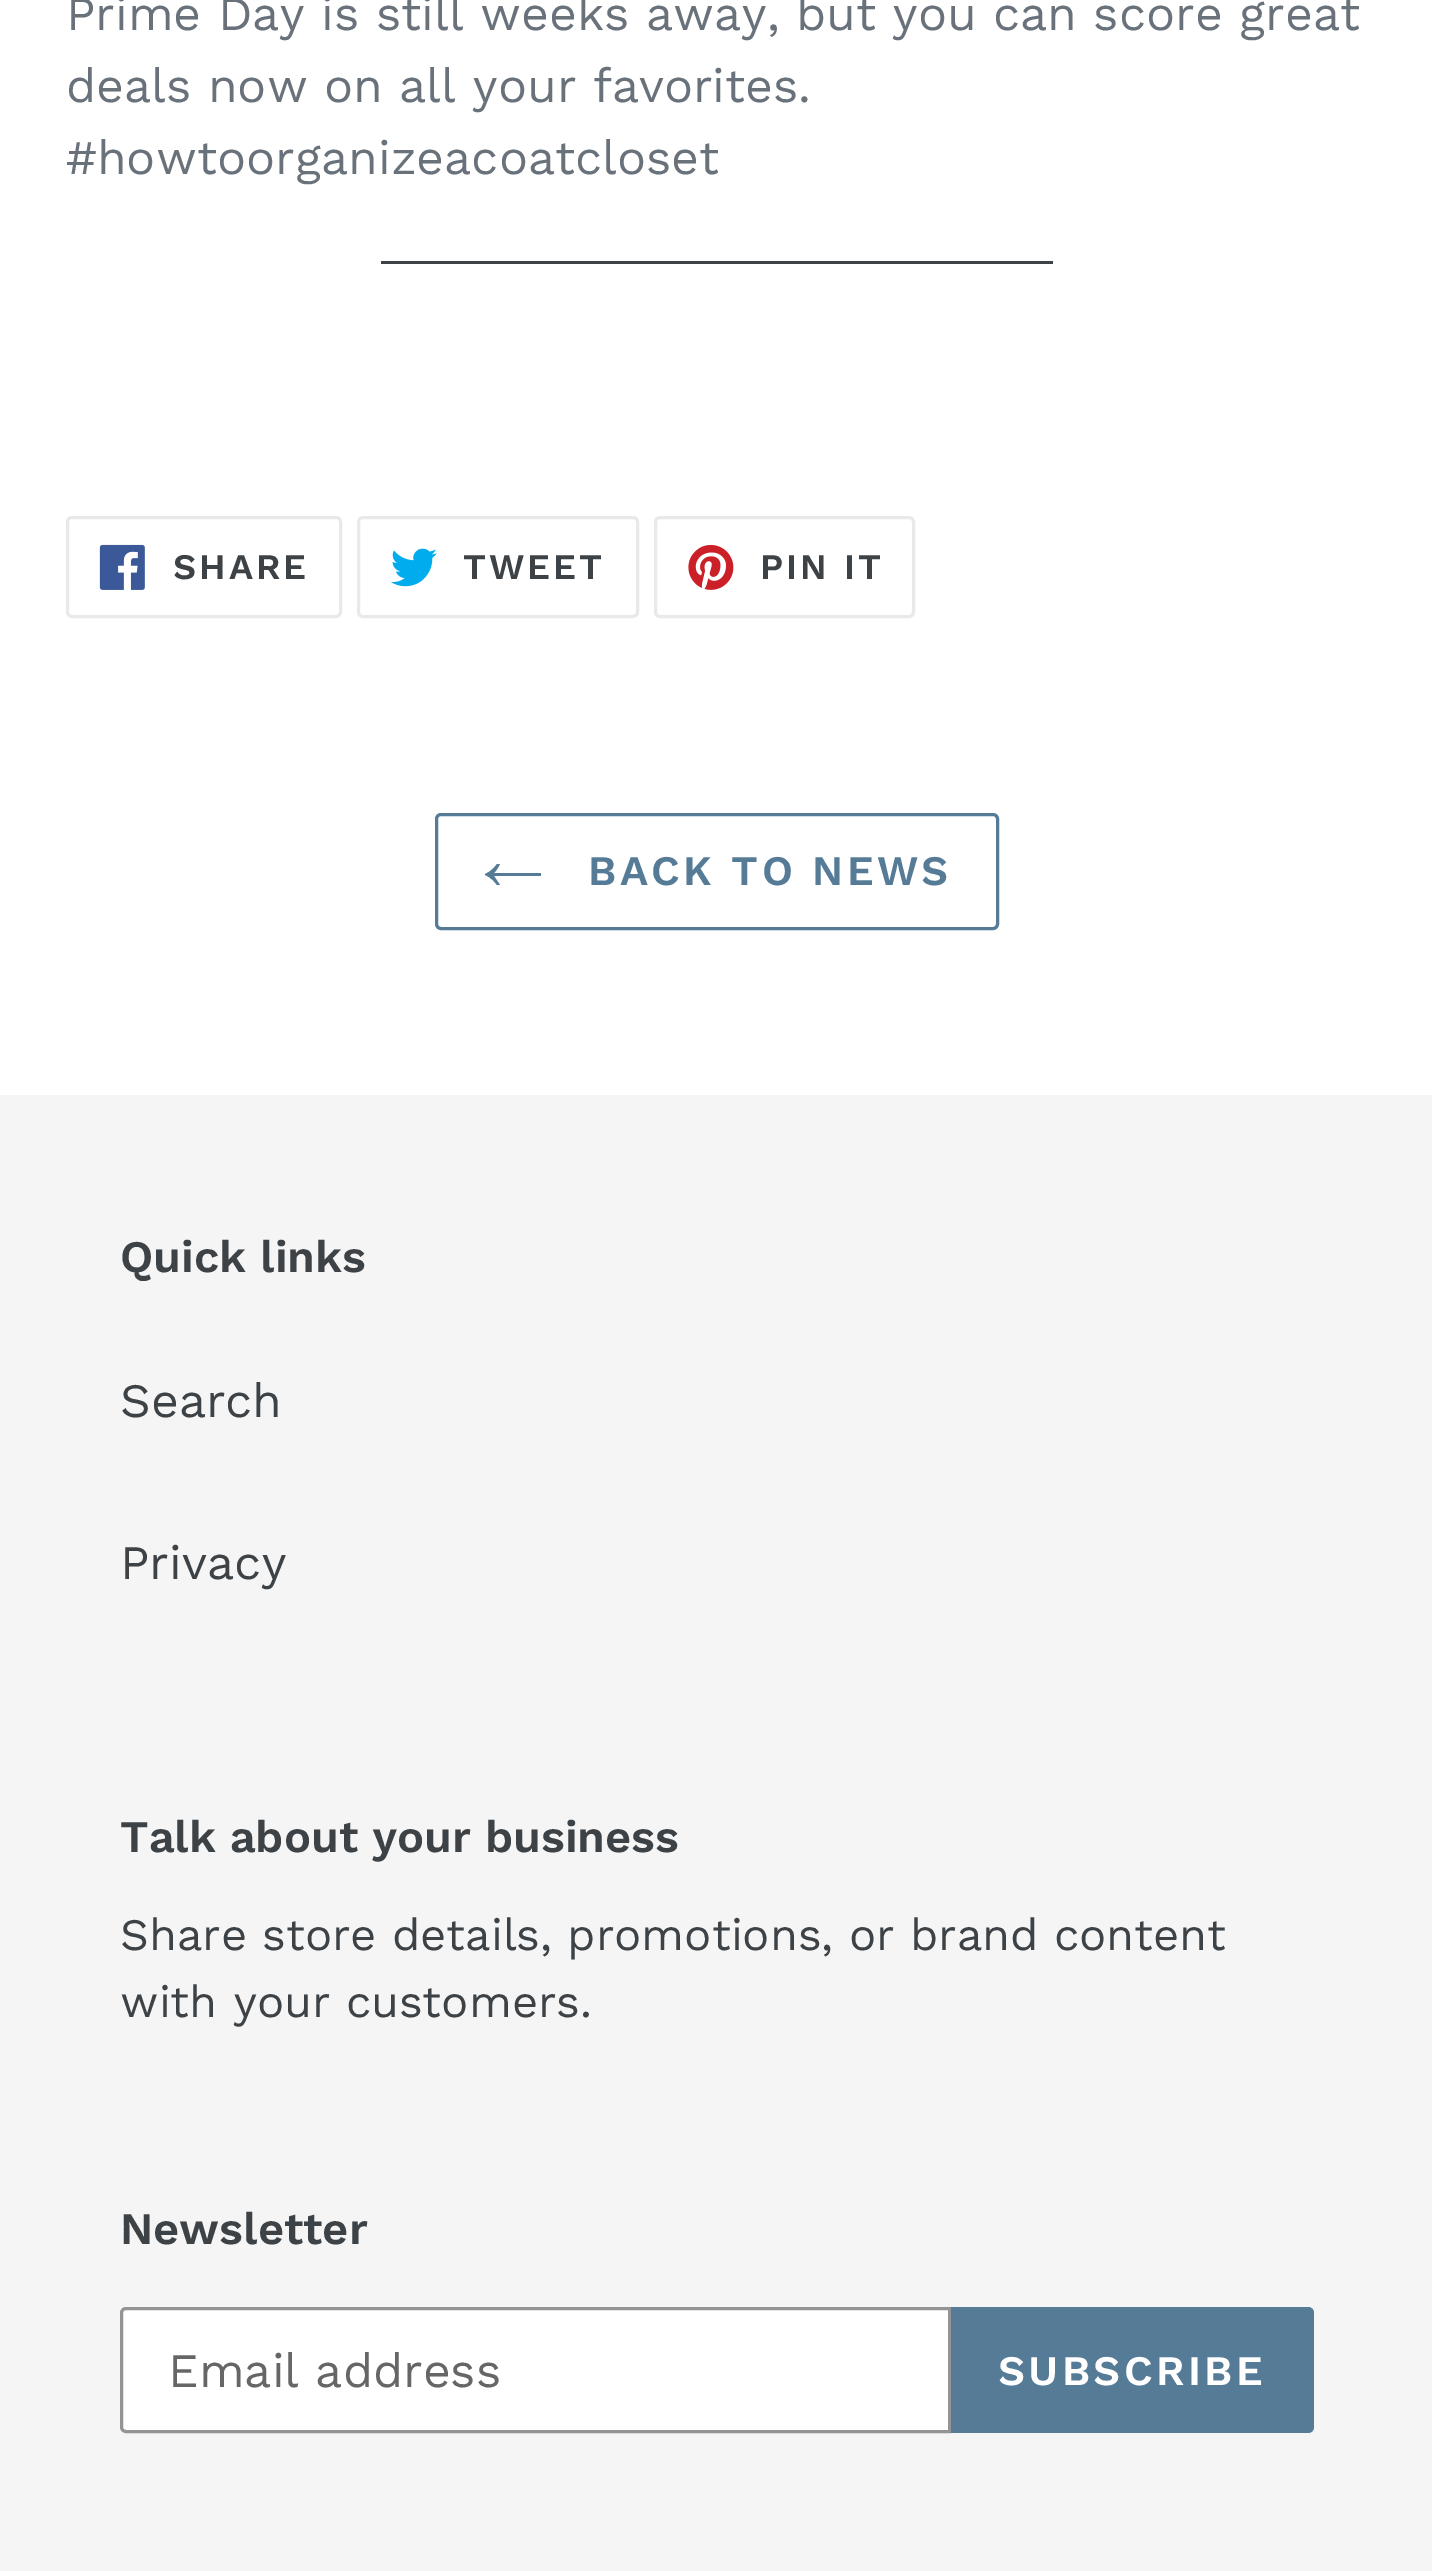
%!PS
<< /PageSize [1432 2571] >> setpagedevice
/rgb { 3 { 255 div 3 1 roll } repeat setrgbcolor } def
/font { [ exch dup neg 0 0 3 -1 roll 0 0 ] selectfont } def
/text { moveto show } def
/roundrect { 5 dict begin { /r /h /w /y /x } { exch def } forall
  x r add y moveto x w add y 2 copy h add r arct x w add y h add x 1 index r arct
  x y h add x y r arct x y 2 copy exch w add exch r arct closepath end } def
/picture { 5 dict begin { /h /w /y /x /name } { exch def } forall
  gsave x y translate w h scale
  w h 8 [w 0 0 h 0 0] name (r) file false 3 colorimage grestore end } def
0 2571 translate 1 -1 scale
4 setmiterlimit
255 255 255 rgb
0 0 1432 2571 rectfill
61 66 70 rgb
381 261 672 3 rectfill
232 233 235 rgb
3 setlinewidth
67.5 517.5 273 99 4.5 roundrect stroke
(img_01.rgb) 99 544 46 46 picture
358.5 517.5 279 99 4.5 roundrect stroke
(img_02.rgb) 391 548 46 39 picture
655.5 517.5 258 99 4.5 roundrect stroke
(img_03.rgb) 688 544 46 46 picture
85 123 151 rgb
436.5 814.5 561 114 4.5 roundrect stroke
497 885 moveto -3 -4 -7 -8 -12 -10 rcurveto 0 -1 rlineto 5 -2 9 -6 12 -10 rcurveto 3 0 rlineto -2 4 -4 7 -6 9 rcurveto 47 0 rlineto 0 3 rlineto -47 0 rlineto 2 3 4 6 6 9 rcurveto closepath eofill
245 245 245 rgb
0 1095 1432 1476 rectfill
255 255 255 rgb
126 2308.5 moveto 823.5 0 rlineto 0 123 rlineto -823.5 0 rlineto -2.5 0 -4.5 -2 -4.5 -4.5 rcurveto 0 -114 rlineto 0 -2.5 2 -4.5 4.5 -4.5 rcurveto closepath gsave fill grestore
148 148 148 rgb
stroke
85 123 151 rgb
951 2307 moveto 357 0 rlineto 3.5 0 6 2.5 6 6 rcurveto 0 114 rlineto 0 3.5 -2.5 6 -6 6 rcurveto -357 0 rlineto closepath fill
/WorkSans-Regular 48 font
105 114 123 rgb
(Prime Day is still weeks away, but you can score great) 66 30 text
(deals now on all your favorites.) 66 102 text
(#howtoorganizeacoatcloset) 66 174 text
/WorkSans-SemiBold 36 font
61 66 70 rgb
173 579 moveto 3 0 (SHARE) ashow
463 579 moveto 3 0 (TWEET) ashow
760 579 moveto 3 0 (PIN IT) ashow
/WorkSans-SemiBold 42 font
85 123 151 rgb
588 885 moveto 3.4 0 (BACK TO NEWS) ashow
/WorkSans-SemiBold 45 font
61 66 70 rgb
(Quick links) 120 1272 text
/WorkSans-Regular 48 font
(Search) 120 1417 text
(Privacy) 120 1579 text
/WorkSans-SemiBold 45 font
(Talk about your business) 120 1852 text
/WorkSans-Regular 45 font
(Share store details, promotions, or brand content) 120 1950 text
(with your customers.) 120 2017 text
/WorkSans-SemiBold 45 font
(Newsletter) 120 2244 text
/WorkSans-Regular 48 font
102 102 102 rgb
(Email address) 168 2387 text
/WorkSans-SemiBold 42 font
255 255 255 rgb
998 2385 moveto 3.4 0 (SUBSCRIBE) ashow
showpage
